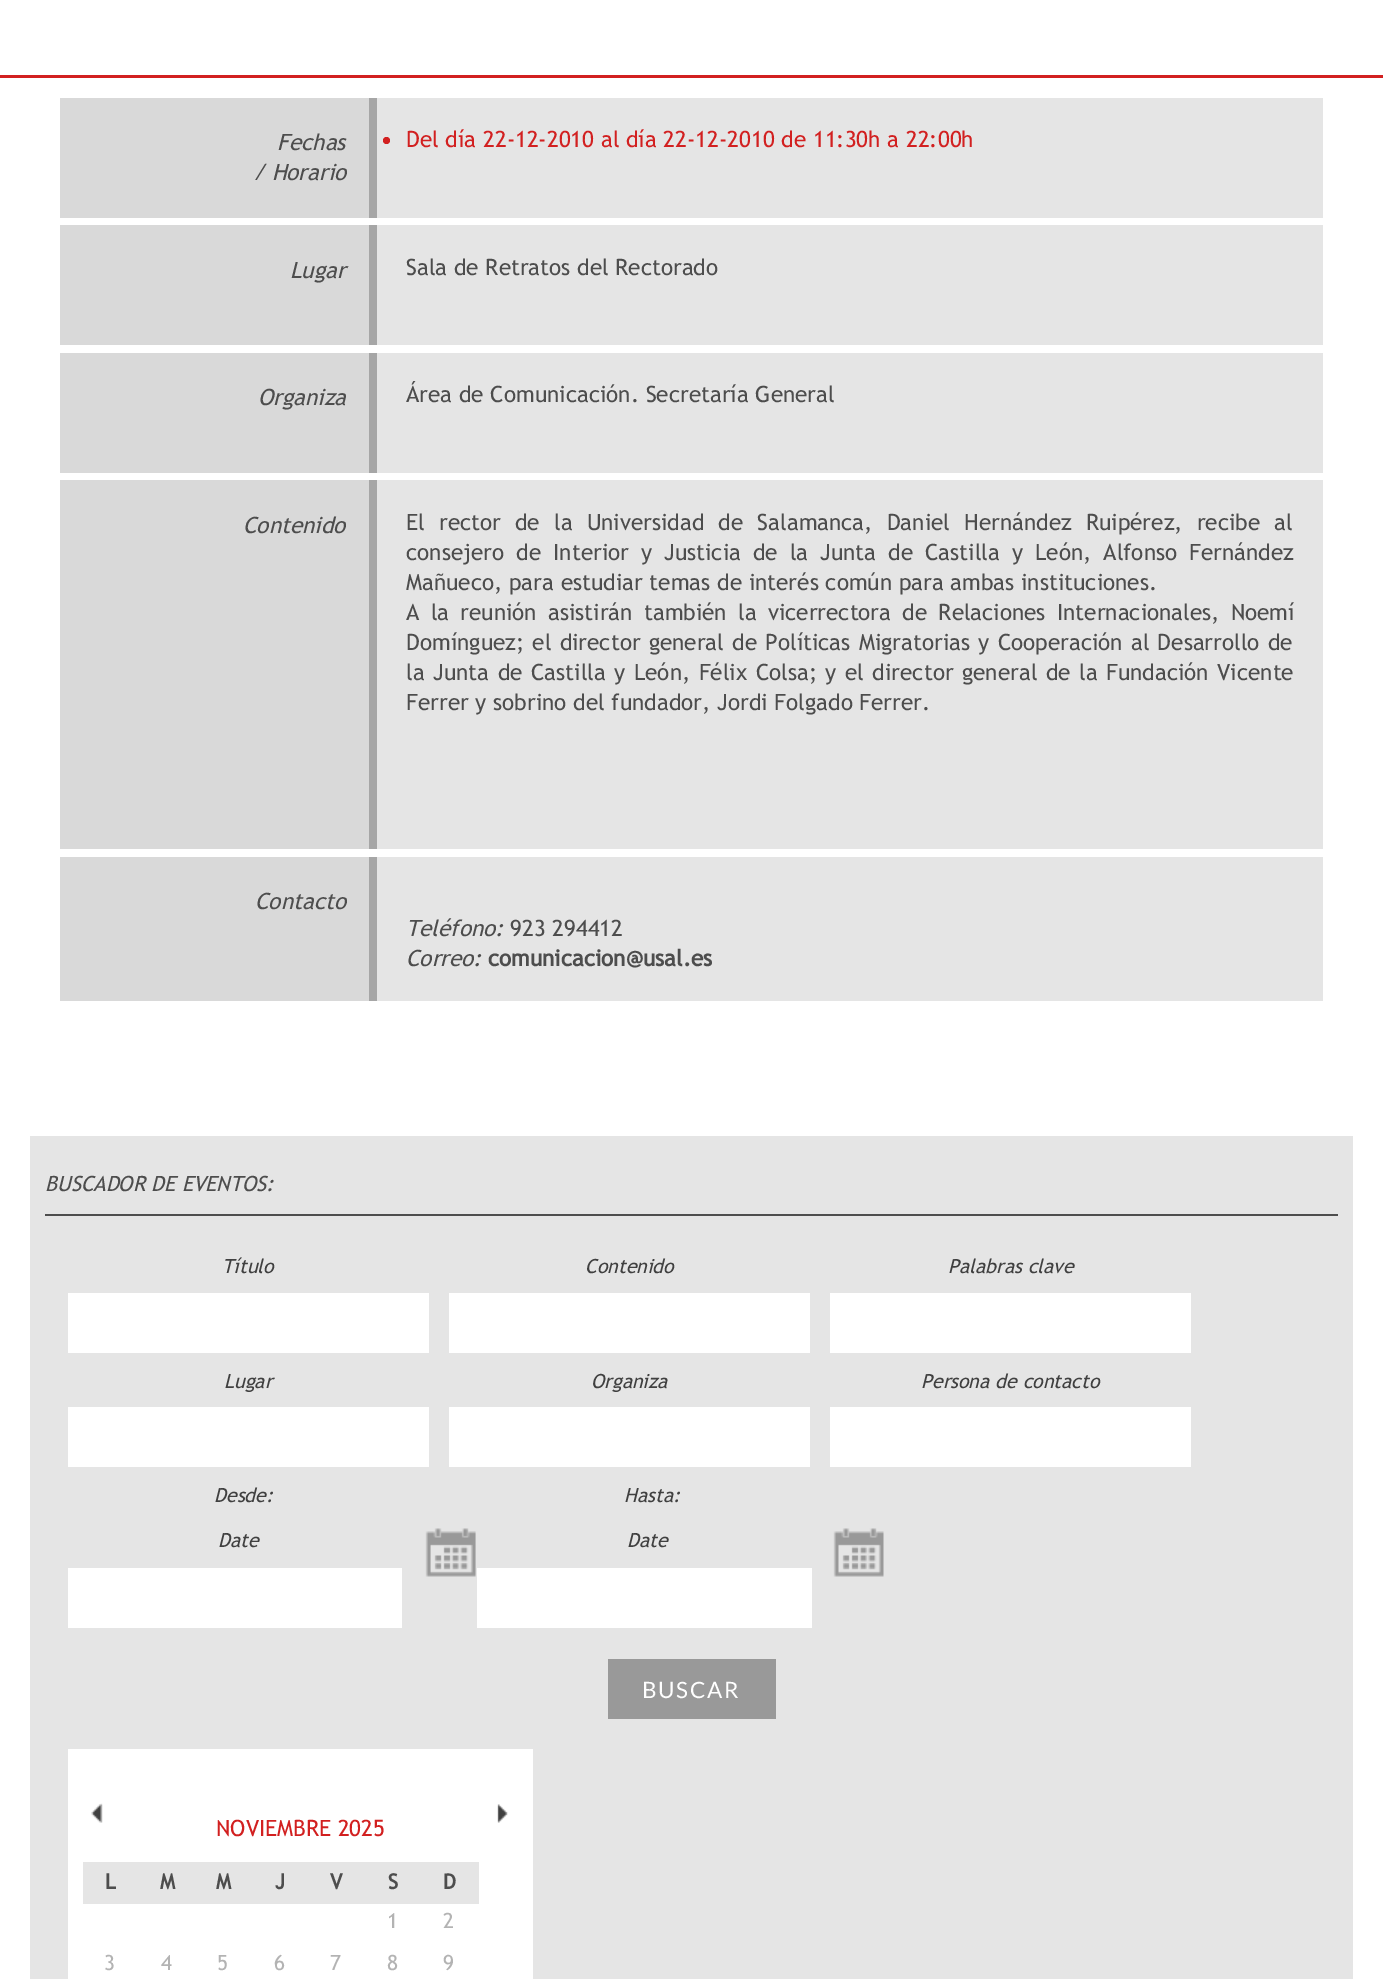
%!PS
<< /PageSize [1383 1979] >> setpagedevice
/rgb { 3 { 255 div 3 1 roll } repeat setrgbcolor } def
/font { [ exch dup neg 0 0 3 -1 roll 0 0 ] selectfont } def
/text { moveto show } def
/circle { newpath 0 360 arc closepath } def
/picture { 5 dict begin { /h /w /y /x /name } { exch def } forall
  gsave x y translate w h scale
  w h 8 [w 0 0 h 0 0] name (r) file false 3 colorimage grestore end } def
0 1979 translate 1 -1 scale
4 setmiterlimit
255 255 255 rgb
0 0 1383 1979 rectfill
210 32 32 rgb
0 75 1383 3 rectfill
217 217 217 rgb
60 98 309 120 rectfill
166 166 166 rgb
369 98 8 120 rectfill
229 229 229 rgb
377 98 946 120 rectfill
210 32 32 rgb
386.5 140.5 3.5 circle fill
217 217 217 rgb
60 225 309 120 rectfill
166 166 166 rgb
369 225 8 120 rectfill
229 229 229 rgb
377 225 946 120 rectfill
217 217 217 rgb
60 353 309 120 rectfill
166 166 166 rgb
369 353 8 120 rectfill
229 229 229 rgb
377 353 946 120 rectfill
217 217 217 rgb
60 480 309 369 rectfill
166 166 166 rgb
369 480 8 369 rectfill
229 229 229 rgb
377 480 946 369 rectfill
217 217 217 rgb
60 857 309 144 rectfill
166 166 166 rgb
369 857 8 144 rectfill
229 229 229 rgb
377 857 946 144 rectfill
30 1136 1323 843 rectfill
77 77 77 rgb
45 1214 1293 2 rectfill
255 255 255 rgb
68 1293 361 60 rectfill
449 1293 361 60 rectfill
830 1293 361 60 rectfill
68 1407 361 60 rectfill
449 1407 361 60 rectfill
830 1407 361 60 rectfill
(img_01.rgb) 425 1528 51 49 picture
68 1568 334 60 rectfill
(img_02.rgb) 833 1528 51 49 picture
477 1568 335 60 rectfill
153 153 153 rgb
608 1659 168 60 rectfill
255 255 255 rgb
68 1749 465 230 rectfill
(img_03.rgb) 91 1803 12 20 picture
(img_04.rgb) 497 1804 11 19 picture
229 229 229 rgb
83 1862 396 42 rectfill
/TrebuchetMS-Italic 22.5 font
77 77 77 rgb
(Fechas) 277 150 text
(/ Horario) 253 180 text
/TrebuchetMS-Regular 22.5 font
210 32 32 rgb
(Del día 22-12-2010 al día 22-12-2010 de 11:30h a 22:00h) 406 147 text
/TrebuchetMS-Italic 22.5 font
77 77 77 rgb
(Lugar) 290 278 text
/TrebuchetMS-Regular 22.5 font
(Sala de Retratos del Rectorado) 406 275 text
/TrebuchetMS-Italic 22.5 font
(Organiza) 258 405 text
/TrebuchetMS-Regular 22.5 font
(Área de Comunicación. Secretaría General) 406 402 text
/TrebuchetMS-Italic 22.5 font
(Contenido) 243 533 text
/TrebuchetMS-Regular 22.5 font
406 530 moveto 7.4 0 32 (El rector de la Universidad de Salamanca, Daniel Hernández Ruipérez, recibe al) widthshow
406 560 moveto 5.25 0 32 (consejero de Interior y Justicia de la Junta de Castilla y León, Alfonso Fernández) widthshow
(Mañueco, para estudiar temas de interés común para ambas instituciones.) 406 590 text
406 620 moveto 4.5 0 32 (A la reunión asistirán también la vicerrectora de Relaciones Internacionales, Noemí) widthshow
406 650 moveto 1.5 0 32 (Domínguez; el director general de Políticas Migratorias y Cooperación al Desarrollo de) widthshow
406 680 moveto 1.75 0 32 (la Junta de Castilla y León, Félix Colsa; y el director general de la Fundación Vicente) widthshow
(Ferrer y sobrino del fundador, Jordi Folgado Ferrer.) 406 710 text
/TrebuchetMS-Italic 22.5 font
(Contacto) 255 909 text
(Teléfono:) 406 936 text
/TrebuchetMS-Regular 22.5 font
(923 294412) 510 936 text
/TrebuchetMS-Italic 22.5 font
(Correo:) 406 966 text
/TrebuchetMS-Bold 22.5 font
(comunicacion@usal.es) 488 966 text
/TrebuchetMS-Italic 21 font
(BUSCADOR DE EVENTOS:) 45 1191 text
/TrebuchetMS-Italic 19.5 font
64 64 64 rgb
(Título) 222 1273 text
(Contenido) 585 1273 text
(Palabras clave) 948 1273 text
(Lugar) 224 1388 text
(Organiza) 591 1388 text
(Persona de contacto) 921 1388 text
(Desde:) 214 1502 text
(Date) 218 1547 text
(Hasta:) 624 1502 text
(Date) 627 1547 text
/Lato-Regular 22.5 font
255 255 255 rgb
642 1698 moveto 1.75 0 (BUSCAR) ashow
/TrebuchetMS-Regular 22.5 font
210 32 32 rgb
(NOVIEMBRE 2025) 216 1836 text
/TrebuchetMS-Bold 21 font
77 77 77 rgb
(L) 105 1889 text
(M) 160 1889 text
(M) 216 1889 text
(J) 275 1889 text
(V) 330 1889 text
(S) 388 1889 text
(D) 443 1889 text
/TrebuchetMS-Regular 21 font
179 179 179 rgb
(1) 387 1928 text
(2) 443 1928 text
(3) 104 1970 text
(4) 161 1970 text
(5) 217 1970 text
(6) 274 1970 text
(7) 330 1970 text
(8) 387 1970 text
(9) 443 1970 text
showpage
